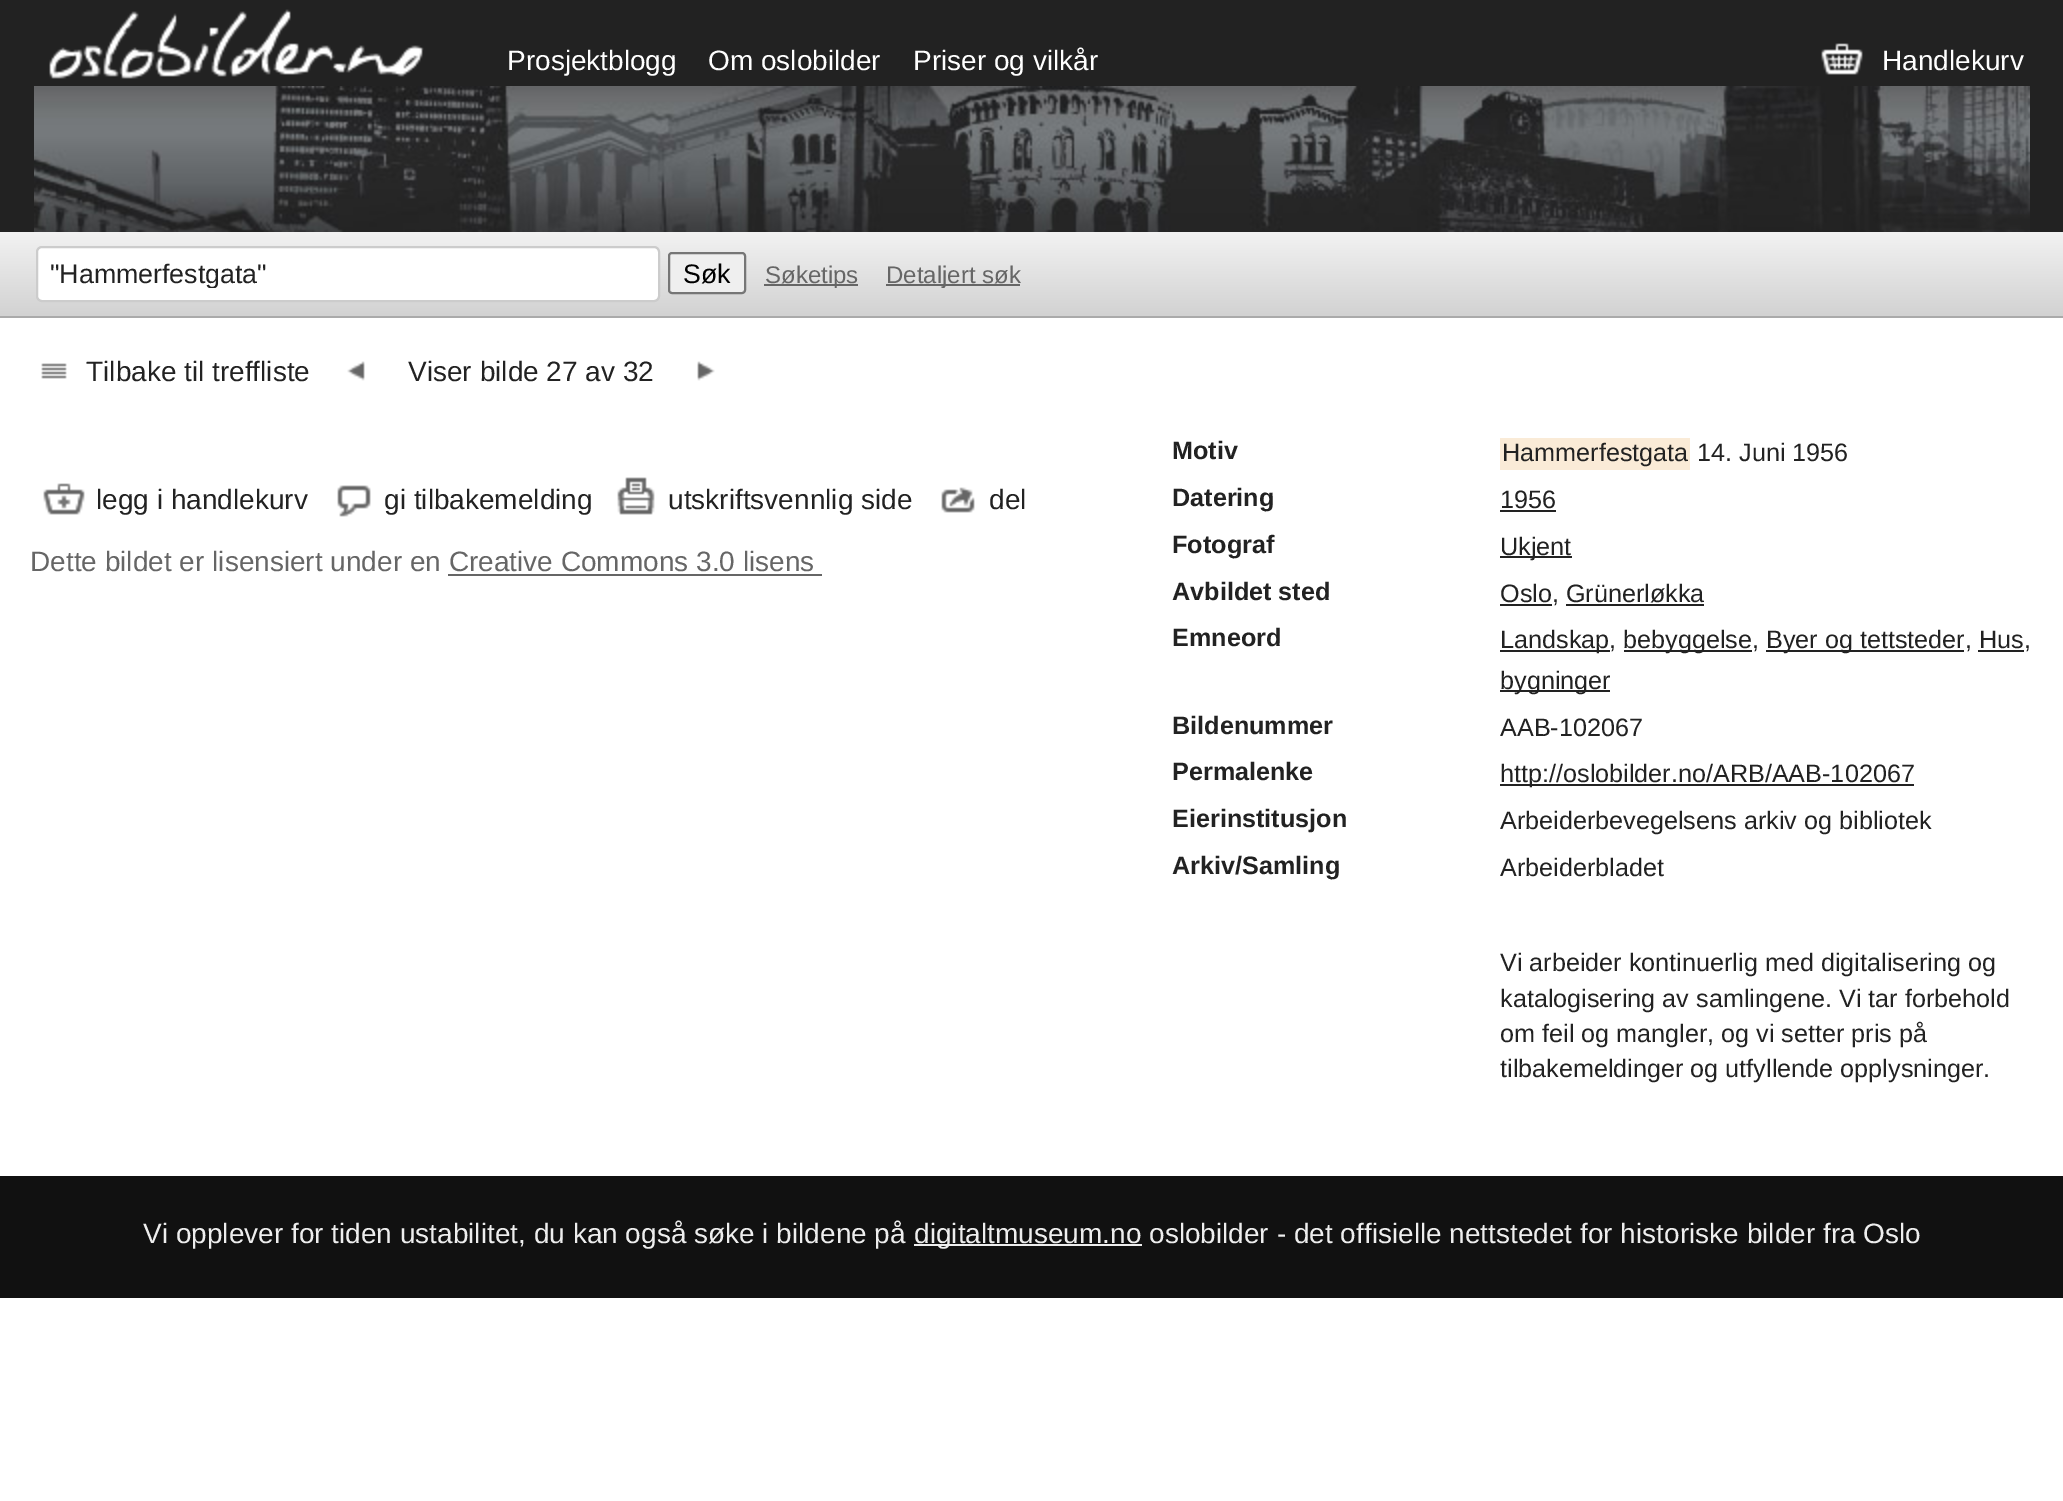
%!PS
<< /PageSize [2063 1501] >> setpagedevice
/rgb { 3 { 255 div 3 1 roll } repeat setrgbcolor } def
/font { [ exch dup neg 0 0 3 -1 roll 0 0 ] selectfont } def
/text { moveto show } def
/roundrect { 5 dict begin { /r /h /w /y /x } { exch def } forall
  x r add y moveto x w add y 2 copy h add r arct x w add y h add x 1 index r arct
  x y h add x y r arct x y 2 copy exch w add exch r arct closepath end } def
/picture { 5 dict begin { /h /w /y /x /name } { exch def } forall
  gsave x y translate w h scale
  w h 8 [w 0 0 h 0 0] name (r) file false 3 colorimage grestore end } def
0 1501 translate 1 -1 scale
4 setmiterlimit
255 255 255 rgb
0 0 2063 1501 rectfill
34 34 34 rgb
0 0 2063 232 rectfill
(img_01.rgb) 34 86 1996 146 picture
(img_02.rgb) 49 9 375 70 picture
(img_03.rgb) 1821 43 42 32 picture
gsave 0 232 moveto 2063 0 rlineto 0 84 rlineto -2063 0 rlineto closepath clip newpath
<< /ShadingType 2 /ColorSpace /DeviceRGB /Coords [1032 232 1032 316] /Extend [true true] /Function << /FunctionType 2 /Domain [0 1] /C0 [0.949 0.949 0.949] /C1 [0.824 0.824 0.824] /N 1 >> >> shfill grestore
170 170 170 rgb
0 316 2063 2 rectfill
255 255 255 rgb
37 247 622 54 5 roundrect gsave fill grestore
204 204 204 rgb
2 setlinewidth
stroke
239 239 239 rgb
669 253 76 40 3 roundrect gsave fill grestore
118 118 118 rgb
stroke
102 102 102 rgb
764 284 94 2 rectfill
886 284 134 2 rectfill
(img_04.rgb) 41 363 26 16 picture
(img_05.rgb) 347 361 18 20 picture
(img_06.rgb) 697 361 18 20 picture
(img_07.rgb) 43 483 42 32 picture
(img_08.rgb) 337 485 34 32 picture
(img_09.rgb) 617 477 38 38 picture
(img_10.rgb) 941 487 34 26 picture
448 574 374 2 rectfill
250 235 215 rgb
1500 438 190 32 rectfill
34 34 34 rgb
1500 510 56 2 rectfill
1500 556 72 2 rectfill
1500 604 52 2 rectfill
1566 604 138 2 rectfill
1500 650 110 2 rectfill
1624 650 128 2 rectfill
1766 650 198 2 rectfill
1978 650 46 2 rectfill
1500 690 110 2 rectfill
1500 784 414 2 rectfill
17 17 17 rgb
0 1176 2063 122 rectfill
238 238 238 rgb
914 1244 228 2 rectfill
/LiberationSans-Regular 28 font
255 255 255 rgb
(Prosjektblogg) 507 70 text
(Om oslobilder) 708 70 text
(Priser og vilkår) 913 70 text
(Handlekurv) 1882 70 text
gsave
50 258 594 30 rectclip
/LiberationSans-Regular 26.75 font
34 34 34 rgb
("Hammerfestgata") 50 283 text
grestore
/LiberationSans-Regular 26.75 font
0 0 0 rgb
(Søk) 683 283 text
/LiberationSans-Regular 24 font
102 102 102 rgb
(Søketips) 765 283 text
(Detaljert søk) 886 283 text
/LiberationSans-Regular 28 font
34 34 34 rgb
(Tilbake til treffliste) 86 381 text
(Viser bilde 27 av 32) 408 381 text
(legg i handlekurv) 96 509 text
(gi tilbakemelding) 384 509 text
(utskriftsvennlig side) 668 509 text
(del) 989 509 text
102 102 102 rgb
(Dette bildet er lisensiert under en Creative Commons 3.0 lisens) 30 571 text
/LiberationSans-Bold 25.2 font
34 34 34 rgb
(Motiv) 1172 459 text
/LiberationSans-Regular 25.2 font
(Hammerfestgata) 1502 461 text
(14. Juni 1956) 1697 461 text
/LiberationSans-Bold 25.2 font
(Datering) 1172 506 text
/LiberationSans-Regular 25.2 font
(1956) 1500 508 text
/LiberationSans-Bold 25.2 font
(Fotograf) 1172 553 text
/LiberationSans-Regular 25.2 font
(Ukjent) 1500 555 text
/LiberationSans-Bold 25.2 font
(Avbildet sted) 1172 600 text
/LiberationSans-Regular 25.2 font
(Oslo, Grünerløkka) 1500 602 text
/LiberationSans-Bold 25.2 font
(Emneord) 1172 646 text
/LiberationSans-Regular 25.2 font
(Landskap,) 1500 648 text
(bebyggelse,) 1623 648 text
(Byer og tettsteder, Hus,) 1766 648 text
(bygninger) 1500 689 text
/LiberationSans-Bold 25.2 font
(Bildenummer) 1172 734 text
/LiberationSans-Regular 25.2 font
(AAB-102067) 1500 736 text
/LiberationSans-Bold 25.2 font
(Permalenke) 1172 780 text
/LiberationSans-Regular 25.2 font
(http://oslobilder.no/ARB/AAB-102067) 1500 782 text
/LiberationSans-Bold 25.2 font
(Eierinstitusjon) 1172 827 text
/LiberationSans-Regular 25.2 font
(Arbeiderbevegelsens arkiv og bibliotek) 1500 829 text
/LiberationSans-Bold 25.2 font
(Arkiv/Samling) 1172 874 text
/LiberationSans-Regular 25.2 font
(Arbeiderbladet) 1500 876 text
(Vi arbeider kontinuerlig med digitalisering og) 1500 971 text
(katalogisering av samlingene. Vi tar forbehold) 1500 1007 text
(om feil og mangler, og vi setter pris på) 1500 1042 text
(tilbakemeldinger og utfyllende opplysninger.) 1500 1077 text
/LiberationSans-Regular 28 font
238 238 238 rgb
(Vi opplever for tiden ustabilitet, du kan også søke i bildene på) 143 1243 text
(digitaltmuseum.no oslobilder - det offisielle nettstedet for historiske bilder fra Oslo) 914 1243 text
showpage
